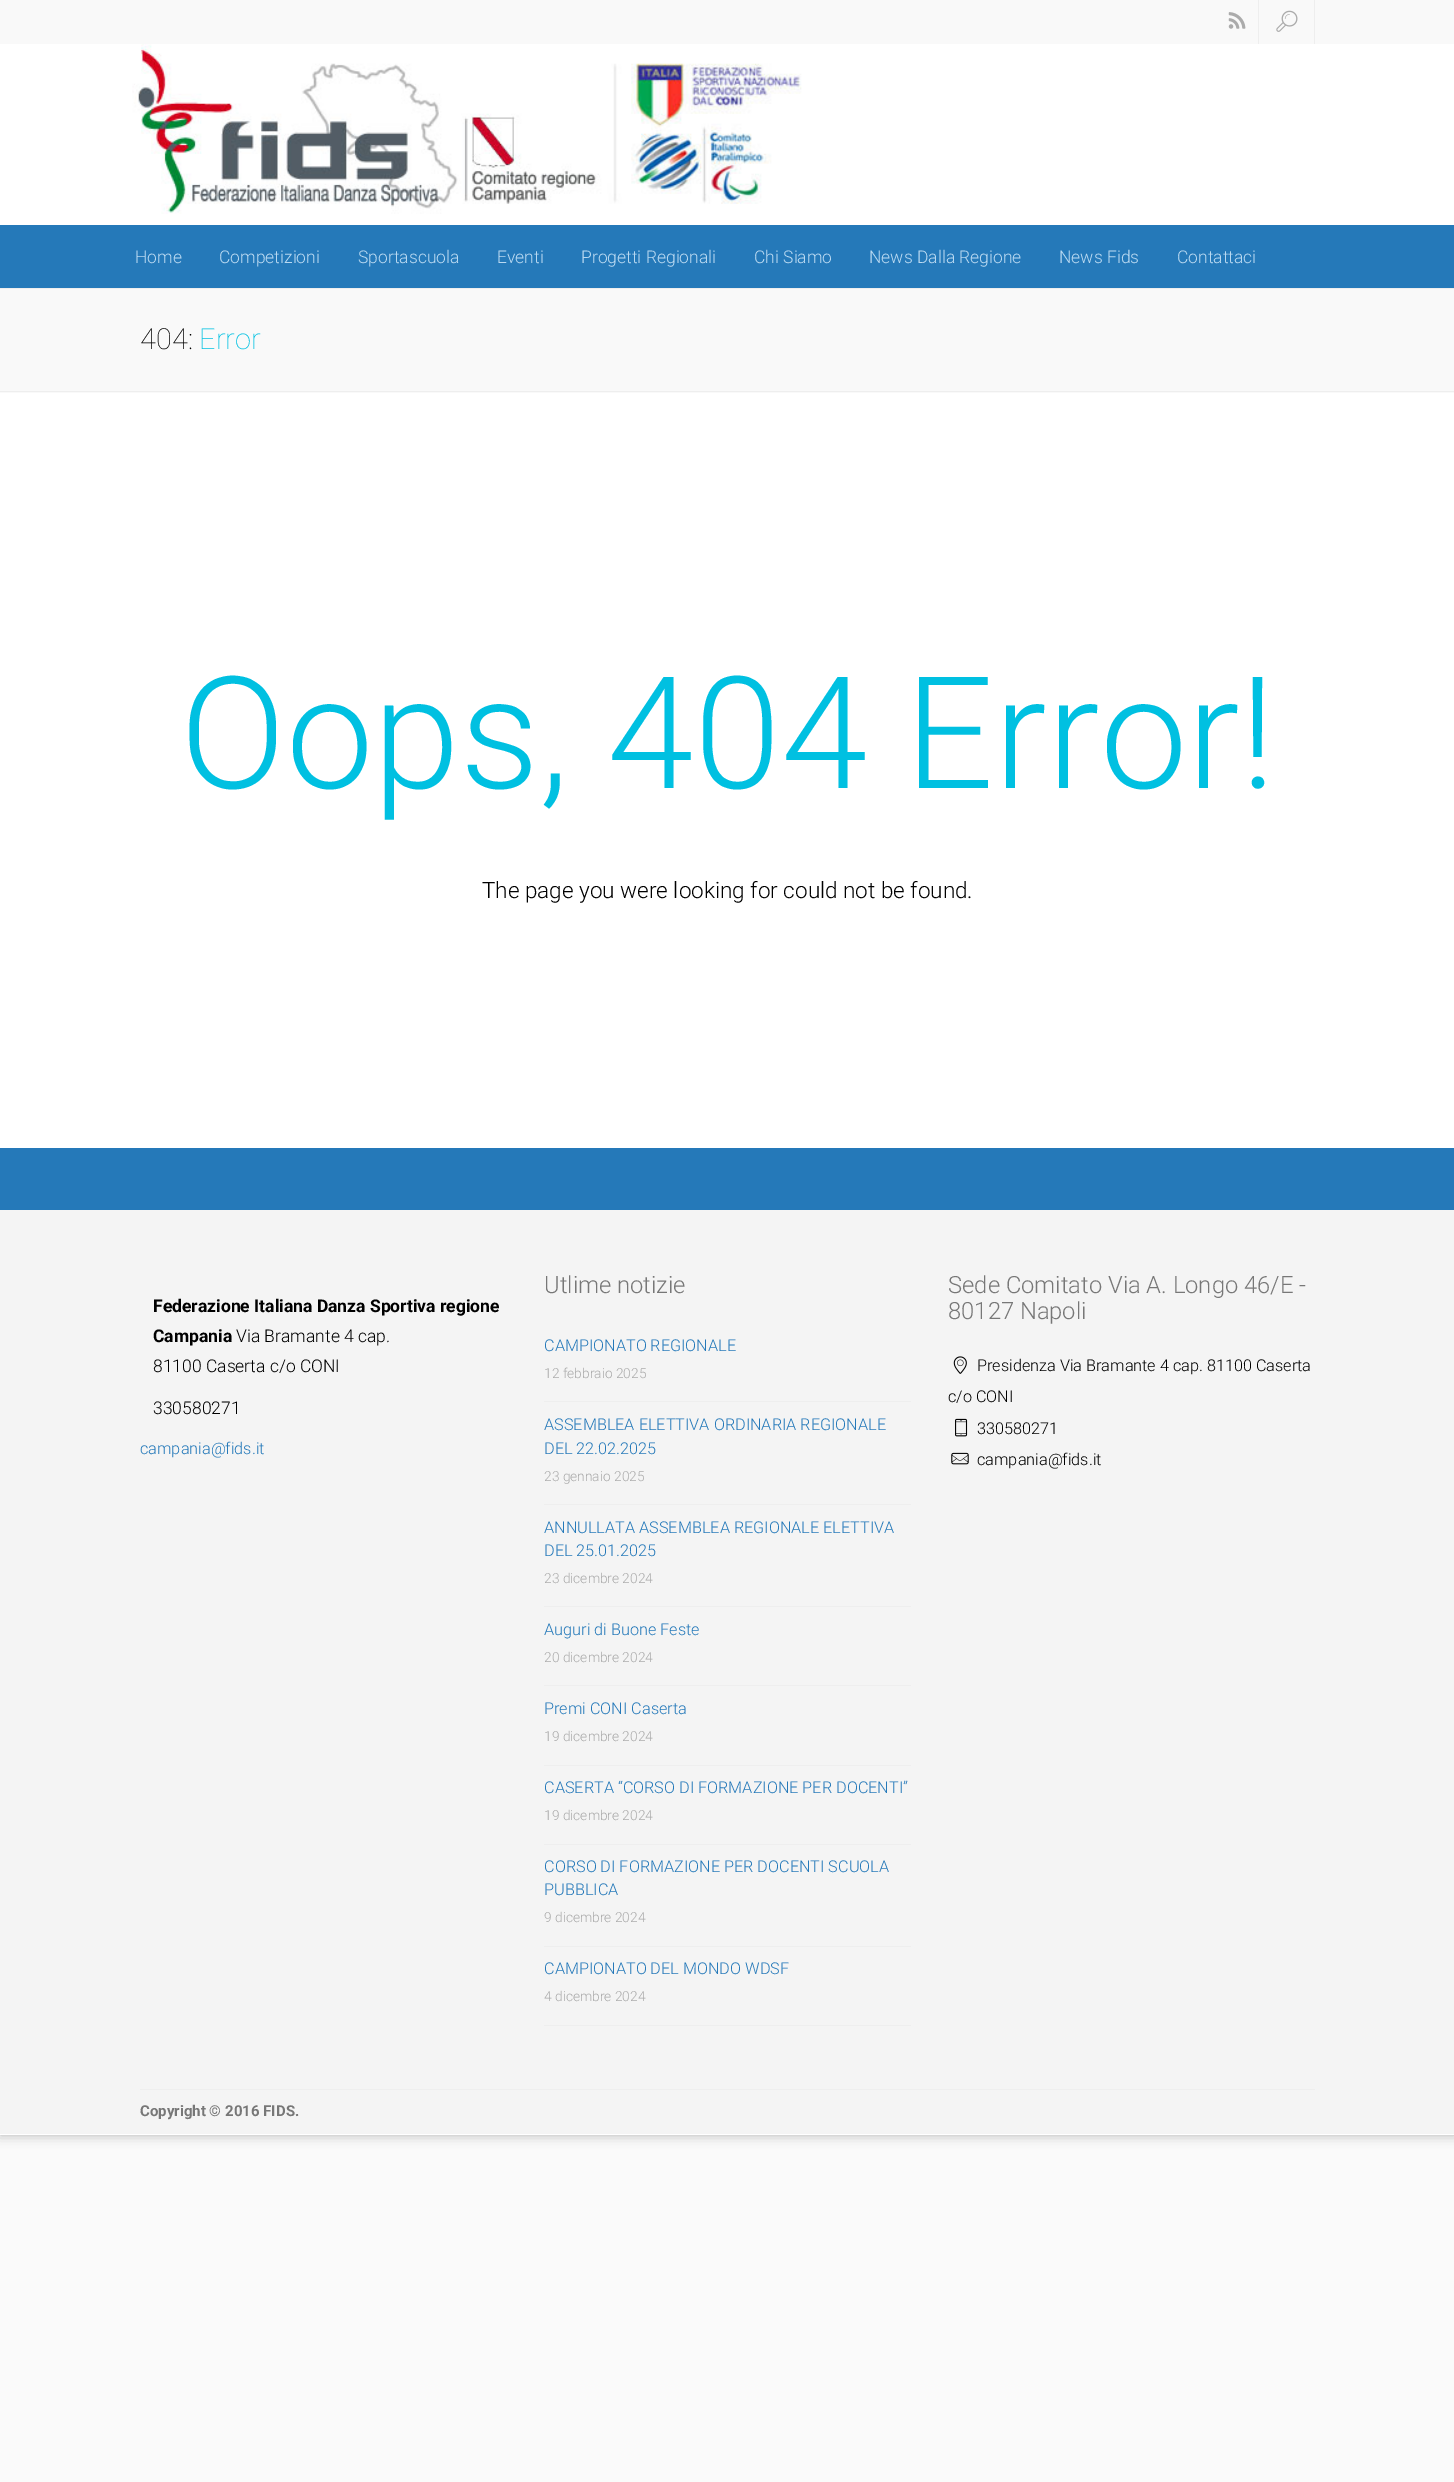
%!PS
<< /PageSize [1454 2482] /PageUsesTransparency true >> setpagedevice
/rgb { 3 { 255 div 3 1 roll } repeat setrgbcolor } def
/font { [ exch dup neg 0 0 3 -1 roll 0 0 ] selectfont } def
/text { moveto show } def
/alpha { dup .setfillconstantalpha .setstrokeconstantalpha } def
/roundrect { 5 dict begin { /r /h /w /y /x } { exch def } forall
  x r add y moveto x w add y 2 copy h add r arct x w add y h add x 1 index r arct
  x y h add x y r arct x y 2 copy exch w add exch r arct closepath end } def
/shadow { 12 dict begin { /a /b /q /h /w /y /x } { exch def } forall gsave /was 0 def
  9 -2 -9 { dup b mul 4 div /e exch def 1 sub .425 mul 2.718 exch exp 1 add a .99 .min exch div /now exch def
    1 1 now sub 1 was sub div sub alpha /was now def
    w h .min e 2 mul add 0 gt { x e sub y e sub w e 2 mul add h e 2 mul add
      q e add b .6 mul add w h .min 2 div e add .min 0 .max roundrect fill } if } for grestore end } def
/picture { 5 dict begin { /h /w /y /x /name } { exch def } forall
  gsave x y translate w h scale
  w h 8 [w 0 0 h 0 0] name (r) file false 3 colorimage grestore end } def
0 .pushpdf14devicefilter
0 2482 translate 1 -1 scale
4 setmiterlimit
250 250 250 rgb
0 0 1454 2482 rectfill
180 180 180 rgb
0 0 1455 2135 0 6 1 shadow
255 255 255 rgb
0 44 1454 2091 rectfill
249 249 249 rgb
0 0 1454 44 rectfill
238 238 238 rgb
1258 0 1 44 rectfill
(img_01.rgb) 1228 12 18 17 picture
1314 0 1 44 rectfill
(img_02.rgb) 1276 10 22 22 picture
(img_03.rgb) 132 44 670 170 picture
37 121 185 rgb
0 225 1454 63 rectfill
249 249 249 rgb
0 289 1454 104 rectfill
238 238 238 rgb
0 288 1454 1 rectfill
0 391 1454 1 rectfill
244 244 244 rgb
0 1210 1454 924 rectfill
37 121 185 rgb
0 1148 1454 62 rectfill
238 238 238 rgb
544 1401 367 1 rectfill
544 1504 367 1 rectfill
544 1606 367 1 rectfill
544 1685 367 1 rectfill
544 1765 367 1 rectfill
544 1844 367 1 rectfill
544 1946 367 1 rectfill
544 2025 367 1 rectfill
(img_04.rgb) 953 1356 14 18 picture
(img_05.rgb) 955 1418 13 19 picture
(img_06.rgb) 951 1452 18 13 picture
140 2089 1175 1 rectfill
/Roboto-Light 17.5 font
185 217 241 rgb
(Home) 135 263 text
(Competizioni) 219 263 text
(Sportascuola) 358 263 text
(Eventi) 497 263 text
(Progetti Regionali) 581 263 text
(Chi Siamo) 754 263 text
(News Dalla Regione) 869 263 text
(News Fids) 1059 263 text
(Contattaci) 1177 263 text
/Roboto-Thin 29 font
0 0 0 rgb
(404:) 140 349 text
0 192 225 rgb
(Error) 199 349 text
/Roboto-Light 156.25 font
(Oops, 404 Error!) 180 788 text
/Roboto-Light 22.5 font
0 0 0 rgb
(The page you were looking for could not be found.) 482 898 text
/Roboto-Bold 17.5 font
(Federazione Italiana Danza Sportiva regione) 153 1312 text
(Campania) 153 1342 text
/Roboto-Light 17.5 font
(Via Bramante 4 cap.) 236 1342 text
(81100 Caserta c/o CONI) 153 1372 text
(330580271) 153 1414 text
/Roboto-Light 16.25 font
37 121 185 rgb
(campania@fids.it) 140 1454 text
/Roboto-Light 23.75 font
119 119 119 rgb
(Utlime notizie) 544 1293 text
/Roboto-Light 16.25 font
37 121 185 rgb
(CAMPIONATO REGIONALE) 544 1351 text
/Roboto-Light 13.75 font
170 170 170 rgb
(12 febbraio 2025) 544 1378 text
/Roboto-Light 16.25 font
37 121 185 rgb
(ASSEMBLEA ELETTIVA ORDINARIA REGIONALE) 544 1430 text
(DEL 22.02.2025) 544 1454 text
/Roboto-Light 13.75 font
170 170 170 rgb
(23 gennaio 2025) 544 1481 text
/Roboto-Light 16.25 font
37 121 185 rgb
(ANNULLATA ASSEMBLEA REGIONALE ELETTIVA) 544 1533 text
(DEL 25.01.2025) 544 1556 text
/Roboto-Light 13.75 font
170 170 170 rgb
(23 dicembre 2024) 544 1583 text
/Roboto-Light 16.25 font
37 121 185 rgb
(Auguri di Buone Feste) 544 1635 text
/Roboto-Light 13.75 font
170 170 170 rgb
(20 dicembre 2024) 544 1662 text
/Roboto-Light 16.25 font
37 121 185 rgb
(Premi CONI Caserta) 544 1714 text
/Roboto-Light 13.75 font
170 170 170 rgb
(19 dicembre 2024) 544 1741 text
/Roboto-Light 16.25 font
37 121 185 rgb
(CASERTA “CORSO DI FORMAZIONE PER DOCENTI”) 544 1793 text
/Roboto-Light 13.75 font
170 170 170 rgb
(19 dicembre 2024) 544 1820 text
/Roboto-Light 16.25 font
37 121 185 rgb
(CORSO DI FORMAZIONE PER DOCENTI SCUOLA) 544 1872 text
(PUBBLICA) 544 1895 text
/Roboto-Light 13.75 font
170 170 170 rgb
(9 dicembre 2024) 544 1922 text
/Roboto-Light 16.25 font
37 121 185 rgb
(CAMPIONATO DEL MONDO WDSF) 544 1974 text
/Roboto-Light 13.75 font
170 170 170 rgb
(4 dicembre 2024) 544 2001 text
/Roboto-Light 23.75 font
119 119 119 rgb
(Sede Comitato Via A. Longo 46/E -) 948 1293 text
(80127 Napoli) 948 1319 text
/Roboto-Light 16.25 font
0 0 0 rgb
(Presidenza Via Bramante 4 cap. 81100 Caserta) 977 1371 text
(c/o CONI) 948 1402 text
(330580271) 977 1434 text
(campania@fids.it) 977 1465 text
/Roboto-Bold 15 font
119 119 119 rgb
(Copyright © 2016 FIDS.) 140 2116 text
.poppdf14devicefilter showpage
